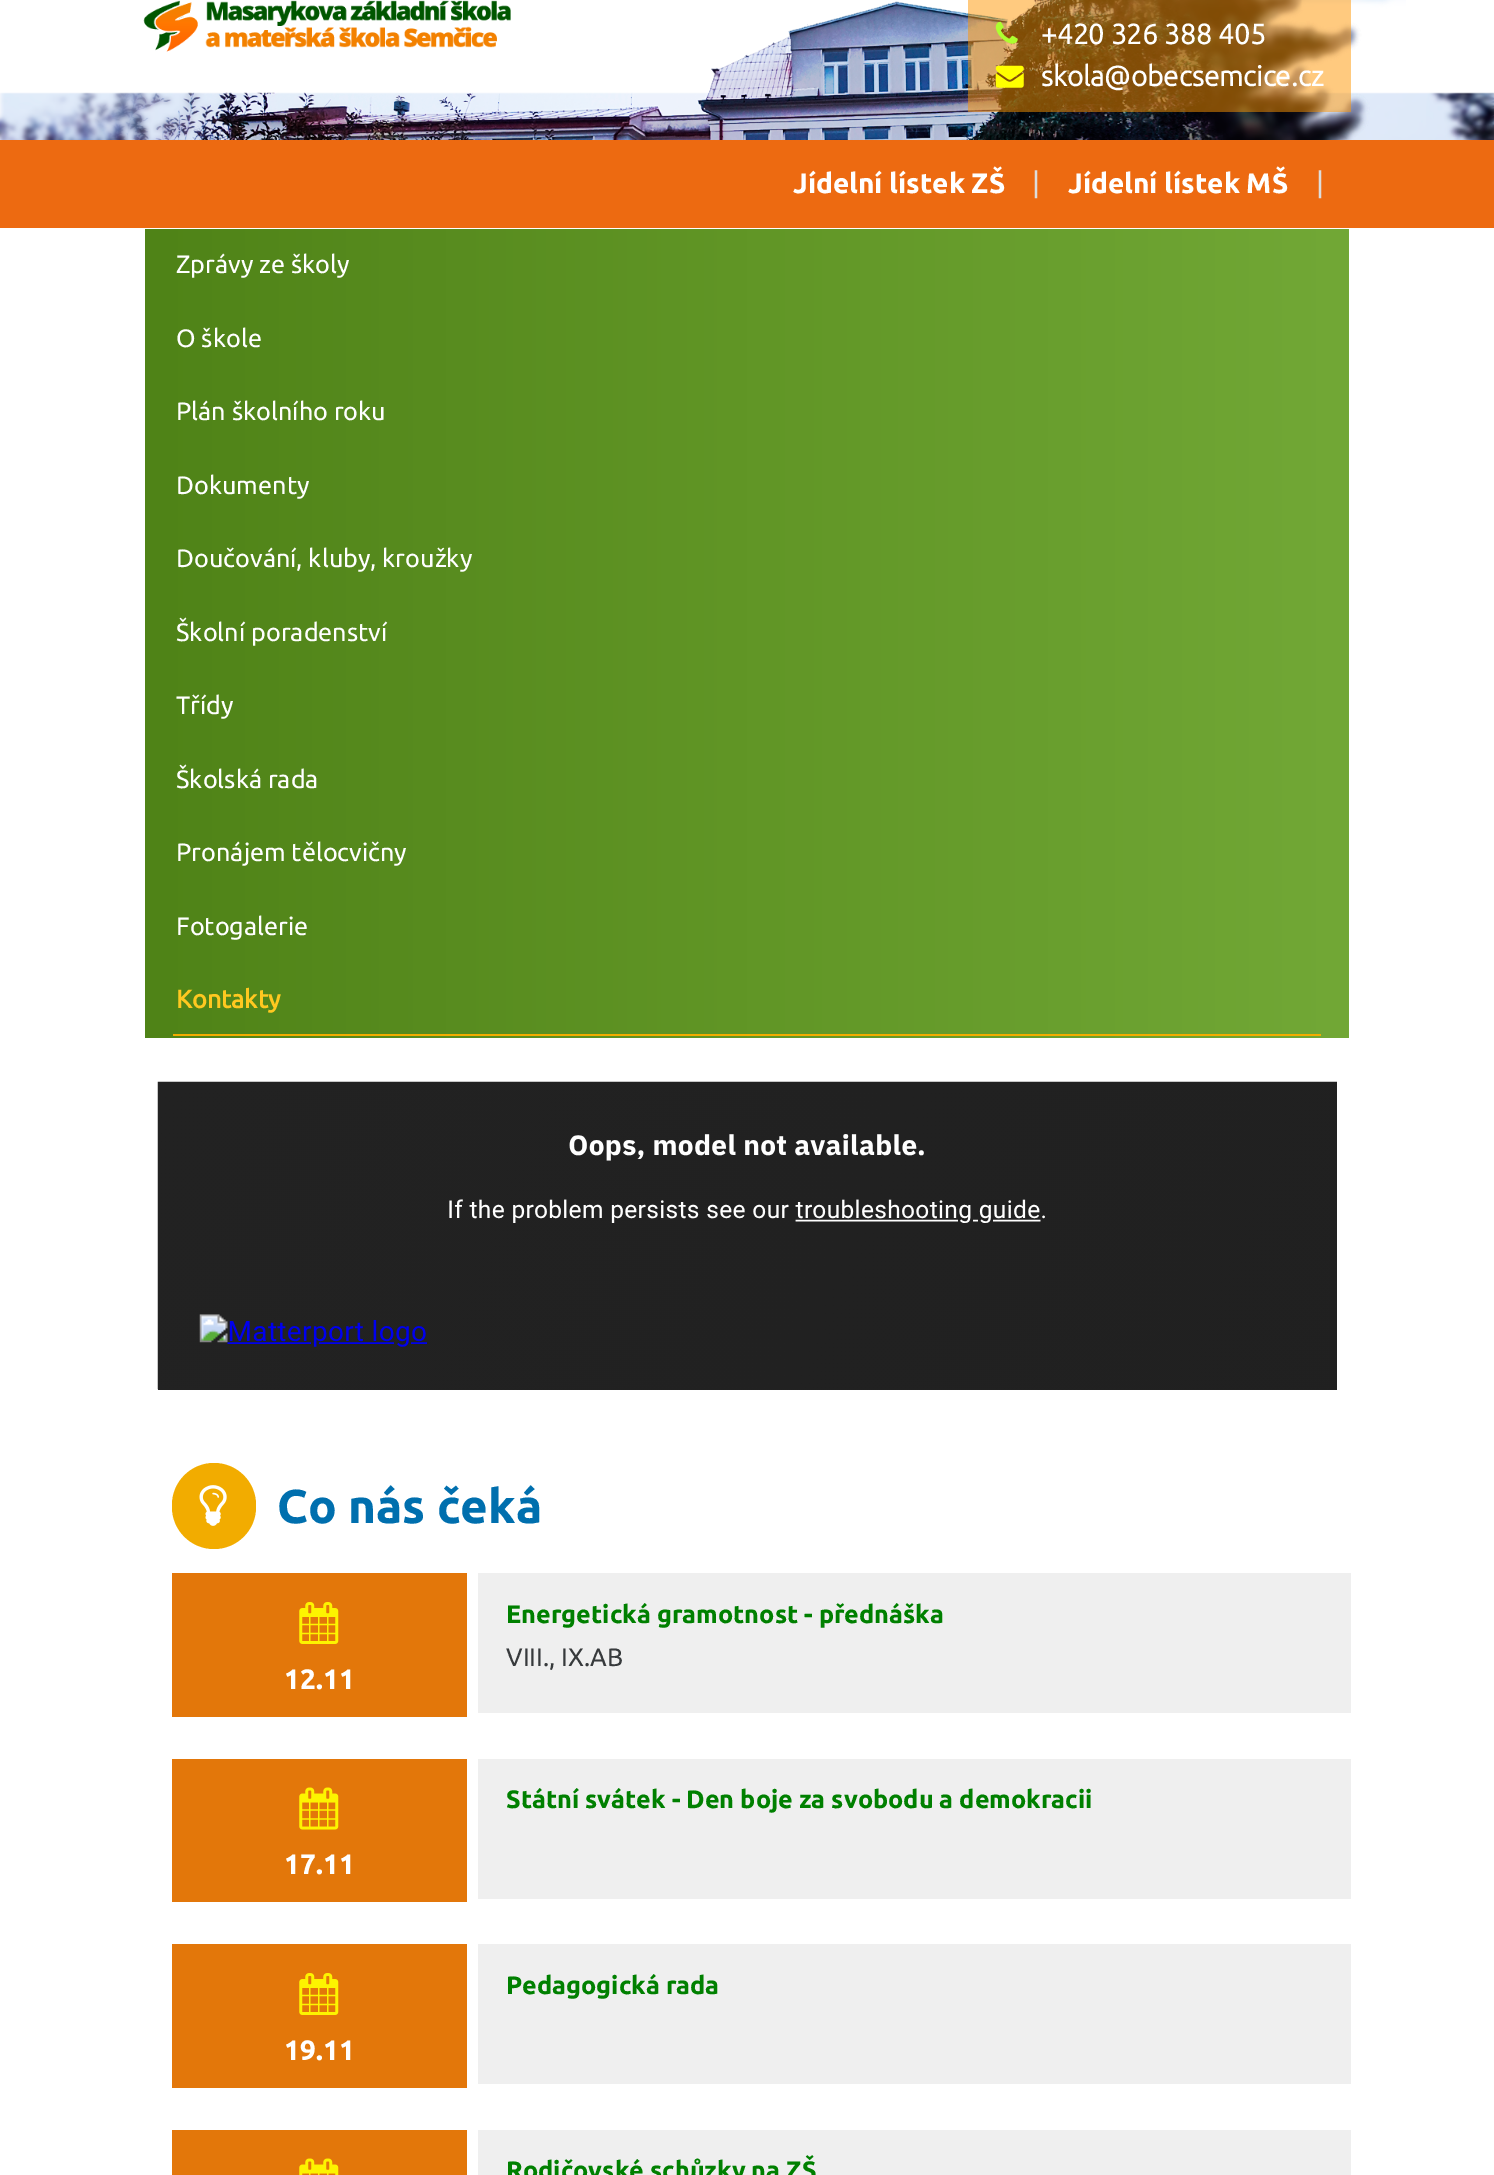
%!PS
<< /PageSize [1494 2175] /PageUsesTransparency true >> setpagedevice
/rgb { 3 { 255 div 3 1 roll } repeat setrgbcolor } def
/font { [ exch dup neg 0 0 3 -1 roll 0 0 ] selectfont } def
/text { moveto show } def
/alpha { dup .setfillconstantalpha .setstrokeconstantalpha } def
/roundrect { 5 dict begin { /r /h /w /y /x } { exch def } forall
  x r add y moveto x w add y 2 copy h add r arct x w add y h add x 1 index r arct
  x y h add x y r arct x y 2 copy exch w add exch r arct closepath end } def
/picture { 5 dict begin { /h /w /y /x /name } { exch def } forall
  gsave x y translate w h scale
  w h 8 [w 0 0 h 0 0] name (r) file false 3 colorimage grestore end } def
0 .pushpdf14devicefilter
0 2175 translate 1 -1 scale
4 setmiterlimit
255 255 255 rgb
0 0 1494 2175 rectfill
(img_01.rgb) 0 0 1494 140 picture
(img_02.rgb) 143 0 368 52 picture
0.5 alpha
255 149 0 rgb
968 0 383 112 rectfill
1 alpha
(img_03.rgb) 995 21 23 23 picture
(img_04.rgb) 995 65 29 23 picture
237 106 17 rgb
0 140 1494 88 rectfill
gsave 145 229 moveto 1204 0 rlineto 0 809 rlineto -1204 0 rlineto closepath clip newpath
<< /ShadingType 2 /ColorSpace /DeviceRGB /Coords [145 634 1349 634] /Extend [true true] /Function << /FunctionType 2 /Domain [0 1] /C0 [0.31 0.514 0.09] /C1 [0.447 0.659 0.212] /N 1 >> >> shfill grestore
242 172 0 rgb
173 1034 1148 2 rectfill
(img_05.rgb) 157 1081 1180 309 picture
172 1463 84 86 42 roundrect fill
(img_06.rgb) 199 1485 28 41 picture
239 239 239 rgb
478 1573 873 140 rectfill
227 119 10 rgb
172 1573 295 144 rectfill
(img_07.rgb) 299 1602 40 42 picture
239 239 239 rgb
478 1759 873 140 rectfill
227 119 10 rgb
172 1759 295 143 rectfill
(img_08.rgb) 299 1787 40 43 picture
239 239 239 rgb
478 1944 873 140 rectfill
227 119 10 rgb
172 1944 295 144 rectfill
(img_07.rgb) 299 1973 40 42 picture
172 2130 295 45 rectfill
(img_09.rgb) 299 2158 40 17 picture
239 239 239 rgb
478 2130 873 45 rectfill
/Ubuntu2-Bold 28 font
255 255 255 rgb
(+420 326 388 405) 1041 44 text
(skola@obecsemcice.cz) 1041 86 text
/Ubuntu-Bold 28 font
(Jídelní lístek ZŠ) 793 193 text
/Ubuntu2-Bold 28 font
221 221 221 rgb
(|) 1032 193 text
/Ubuntu-Bold 28 font
255 255 255 rgb
(Jídelní lístek MŠ) 1068 193 text
/Ubuntu2-Bold 28 font
221 221 221 rgb
(|) 1316 193 text
/Ubuntu-Regular 25.2 font
255 255 255 rgb
(Zprávy ze školy) 176 273 text
(O škole) 176 347 text
(Plán školního roku) 176 420 text
(Dokumenty) 176 494 text
(Doučování, kluby, kroužky) 176 567 text
(Školní poradenství) 176 641 text
(Třídy) 176 714 text
(Školská rada) 176 788 text
(Pronájem tělocvičny) 176 861 text
(Fotogalerie) 176 935 text
/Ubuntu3-Bold 25.2 font
255 200 32 rgb
(Kontakty) 176 1008 text
/Ubuntu-Bold 47.5 font
0 111 174 rgb
(Co nás čeká) 277 1523 text
/Ubuntu-Bold 25.2 font
0 128 0 rgb
(Energetická gramotnost - přednáška) 506 1623 text
/Ubuntu-Regular 25.2 font
55 58 60 rgb
(VIII., IX.AB) 506 1666 text
/Ubuntu-Bold 28 font
255 255 255 rgb
(12.11) 284 1689 text
/Ubuntu-Bold 25.2 font
0 128 0 rgb
(Státní svátek - Den boje za svobodu a demokracii) 506 1808 text
/Ubuntu-Bold 28 font
255 255 255 rgb
(17.11) 284 1874 text
/Ubuntu-Bold 25.2 font
0 128 0 rgb
(Pedagogická rada) 506 1994 text
/Ubuntu-Bold 28 font
255 255 255 rgb
(19.11) 284 2060 text
/Ubuntu-Bold 25.2 font
0 128 0 rgb
(Rodičovské schůzky na ZŠ) 506 2179 text
.poppdf14devicefilter showpage
